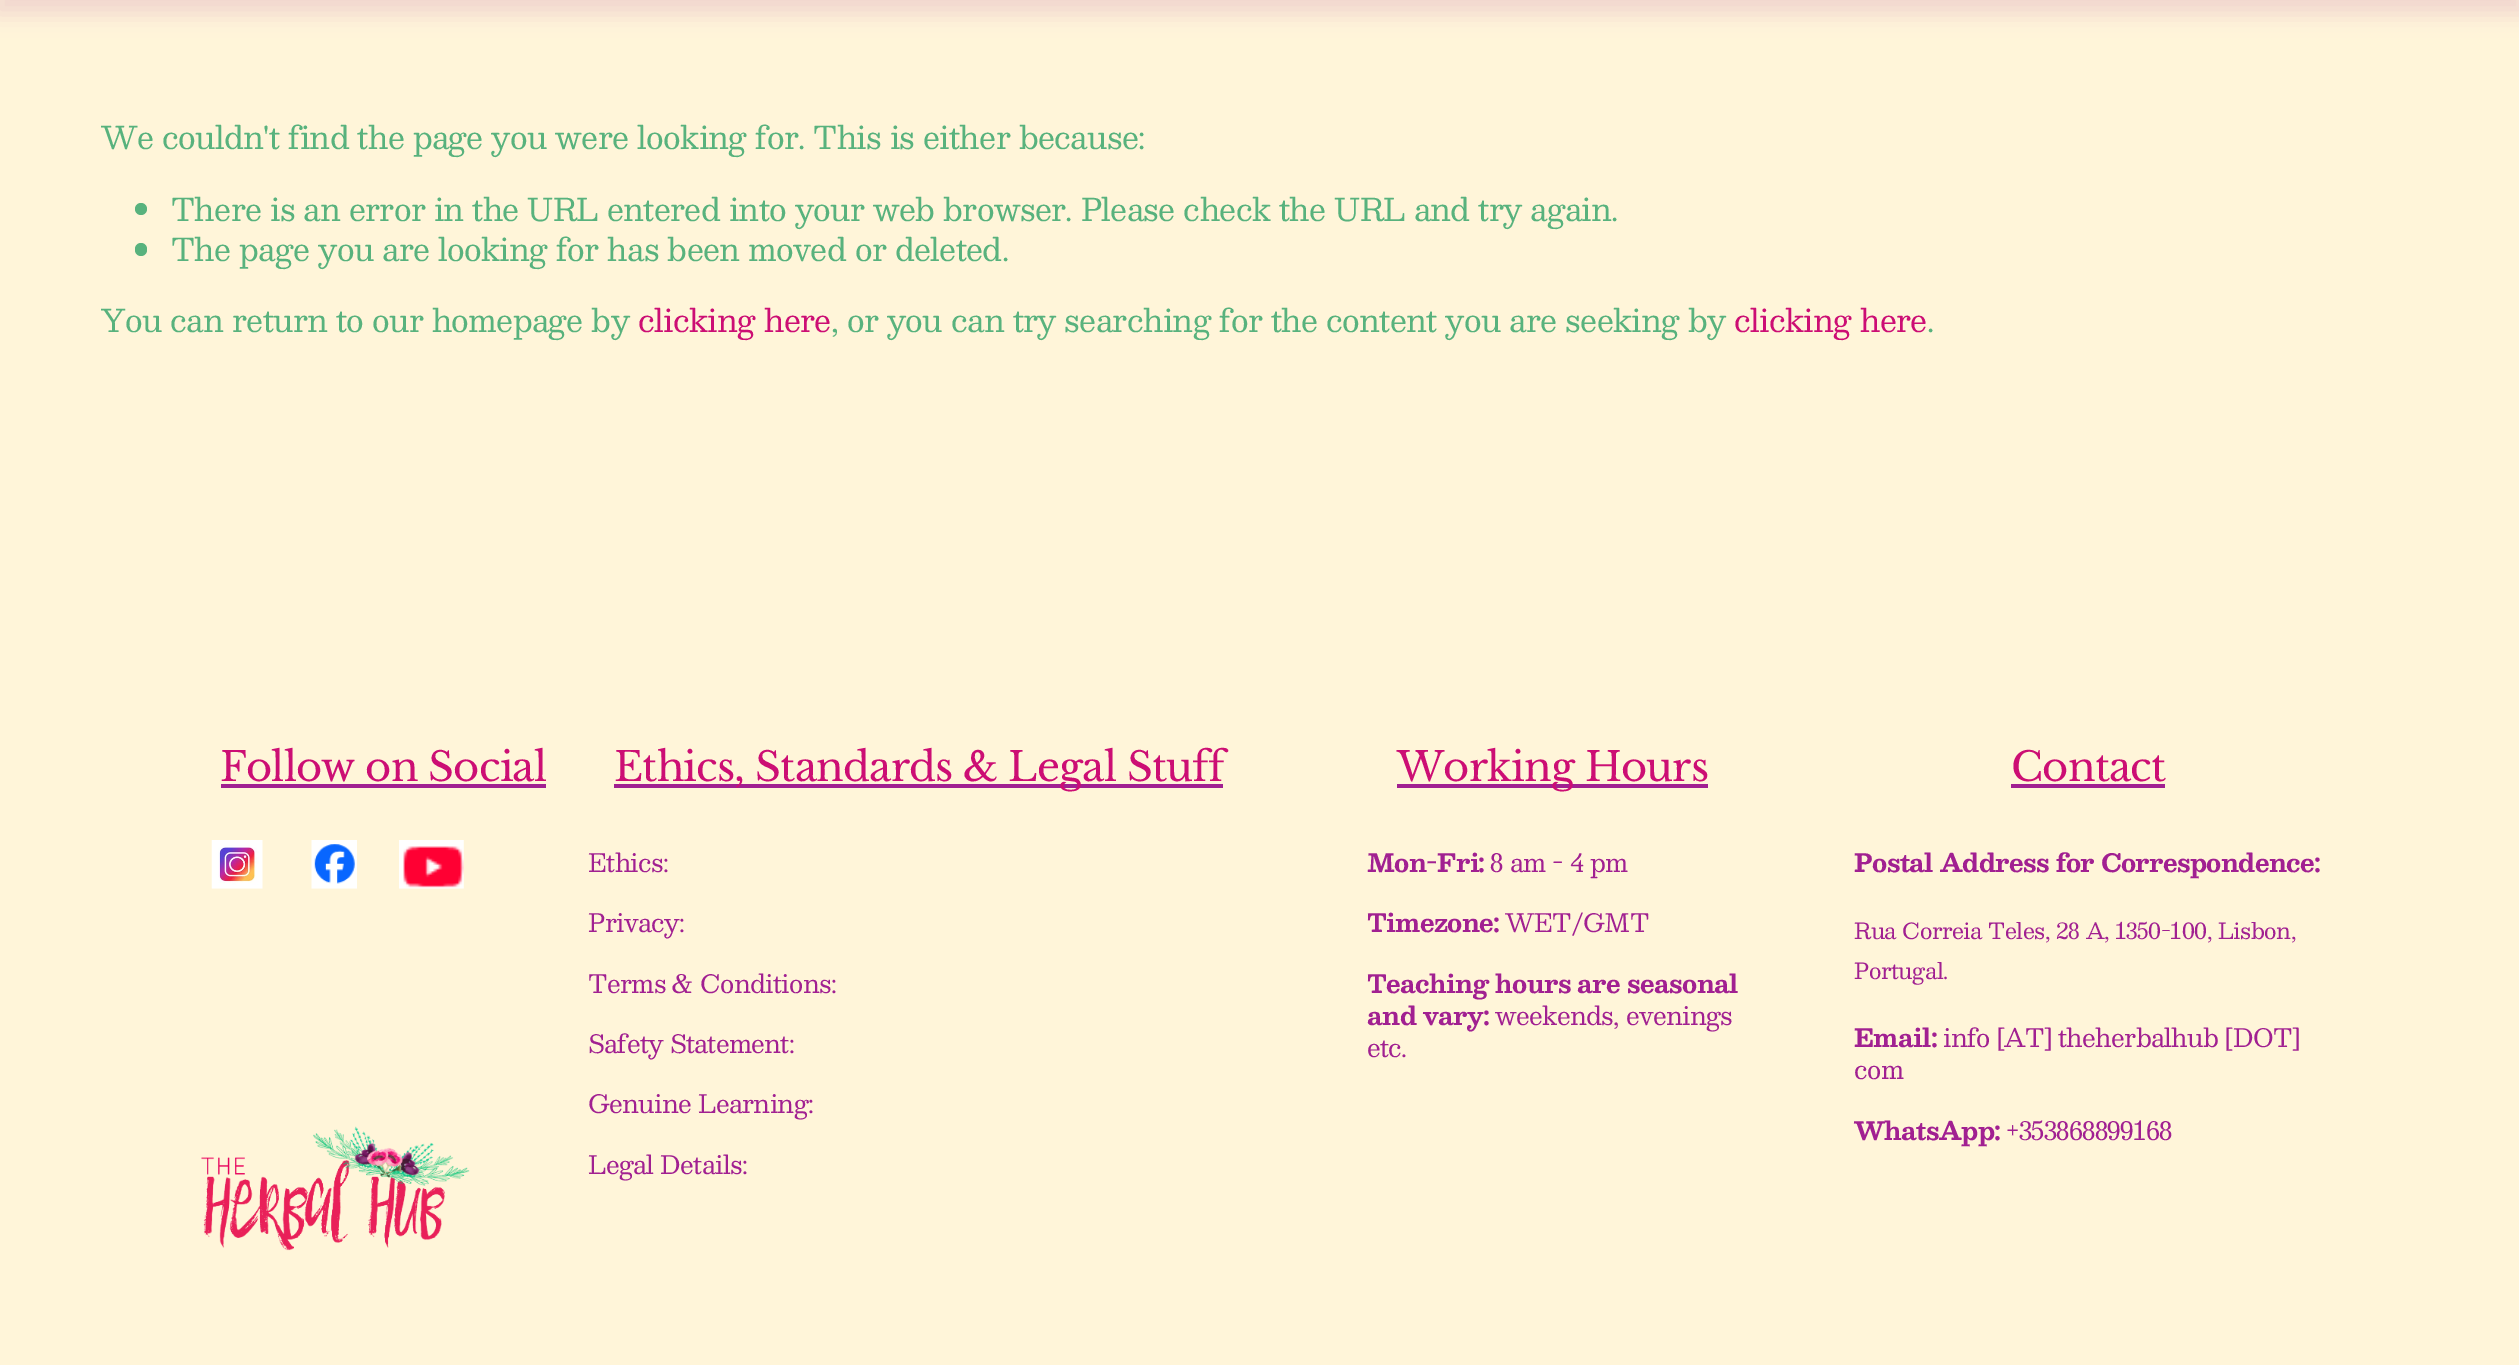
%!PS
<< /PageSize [2519 1365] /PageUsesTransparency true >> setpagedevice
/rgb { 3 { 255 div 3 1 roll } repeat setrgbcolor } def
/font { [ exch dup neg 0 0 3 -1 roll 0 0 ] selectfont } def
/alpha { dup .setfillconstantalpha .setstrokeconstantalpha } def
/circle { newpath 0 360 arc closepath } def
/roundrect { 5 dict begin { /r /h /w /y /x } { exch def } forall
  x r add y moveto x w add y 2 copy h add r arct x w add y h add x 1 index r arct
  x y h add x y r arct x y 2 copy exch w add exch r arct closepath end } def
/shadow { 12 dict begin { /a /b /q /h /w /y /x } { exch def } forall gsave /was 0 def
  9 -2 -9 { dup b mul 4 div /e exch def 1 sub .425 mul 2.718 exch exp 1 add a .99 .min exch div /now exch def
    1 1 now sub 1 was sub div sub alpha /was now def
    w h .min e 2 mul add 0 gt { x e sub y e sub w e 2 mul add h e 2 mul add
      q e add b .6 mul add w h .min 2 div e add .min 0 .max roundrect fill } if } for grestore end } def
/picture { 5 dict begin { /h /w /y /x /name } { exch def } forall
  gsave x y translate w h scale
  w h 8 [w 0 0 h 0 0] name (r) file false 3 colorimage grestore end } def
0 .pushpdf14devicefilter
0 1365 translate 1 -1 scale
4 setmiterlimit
255 245 217 rgb
0 0 2519 1365 rectfill
241 213 206 rgb
-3 -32 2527 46 0 10.5 1 shadow
88 178 125 rgb
141 209 6 circle fill
135 243 12 13 6 roundrect fill
161 32 145 rgb
221 784 325 4 rectfill
614 784 609 4 rectfill
1397 784 311 4 rectfill
2011 784 154 4 rectfill
(img_01.rgb) 211 840 52 49 picture
(img_02.rgb) 311 840 46 49 picture
(img_03.rgb) 399 840 65 49 picture
(img_04.rgb) 201 1126 269 125 picture
/Besley-Regular 31 font
88 178 125 rgb
101 149 moveto -0.62 0 (We couldn't find the page you were looking for. This is either because:) ashow
171 221 moveto -0.62 0 (There is an error in the URL entered into your web browser. Please check the URL and try again.) ashow
171 261 moveto -0.62 0 (The page you are looking for has been moved or deleted.) ashow
101 332 moveto -0.62 0 (You can return to our homepage by) ashow
204 14 116 rgb
638 332 moveto -0.62 0 (clicking here) ashow
88 178 125 rgb
831 332 moveto -0.62 0 (, or you can try searching for the content you are seeking by) ashow
204 14 116 rgb
1734 332 moveto -0.62 0 (clicking here) ashow
88 178 125 rgb
1927 332 moveto -0.62 0 (.) ashow
/LibreBaskerville-Regular 40.1 font
204 14 116 rgb
220 781 moveto -0.8 0 (Follow on Social) ashow
614 781 moveto -0.8 0 (Ethics, Standards & Legal Stuff) ashow
/Besley-Regular 25 font
161 32 145 rgb
588 872 moveto -0.62 0 (Ethics:) ashow
588 932 moveto -0.62 0 (Privacy:) ashow
588 993 moveto -0.62 0 (Terms & Conditions:) ashow
588 1053 moveto -0.62 0 (Safety Statement:) ashow
588 1113 moveto -0.62 0 (Genuine Learning:) ashow
588 1174 moveto -0.62 0 (Legal Details:) ashow
/LibreBaskerville-Regular 40.1 font
204 14 116 rgb
1397 781 moveto -0.8 0 (Working Hours) ashow
/Besley-Bold 25 font
161 32 145 rgb
1367 872 moveto -0.62 0 (Mon-Fri:) ashow
/Besley-Regular 25 font
1490 872 moveto -0.62 0 (8 am - 4 pm) ashow
/Besley-Bold 25 font
1367 932 moveto -0.62 0 (Timezone:) ashow
/Besley-Regular 25 font
1505 932 moveto -0.62 0 (WET/GMT) ashow
/Besley-Bold 25 font
1367 993 moveto -0.62 0 (Teaching hours are seasonal) ashow
1367 1025 moveto -0.62 0 (and vary:) ashow
/Besley-Regular 25 font
1495 1025 moveto -0.62 0 (weekends, evenings) ashow
1367 1057 moveto -0.62 0 (etc.) ashow
/LibreBaskerville-Regular 40.1 font
204 14 116 rgb
2011 781 moveto -0.8 0 (Contact) ashow
/Besley-Bold 25 font
161 32 145 rgb
1854 872 moveto -0.62 0 (Postal Address for Correspondence:) ashow
/Besley-Regular 21.95 font
1854 939 moveto -0.45 0 (Rua Correia Teles, 28 A, 1350-100, Lisbon,) ashow
1854 979 moveto -0.45 0 (Portugal.) ashow
/Besley-Bold 25 font
1854 1047 moveto -0.62 0 (Email:) ashow
/Besley-Regular 25 font
1943 1047 moveto -0.62 0 (info [AT] theherbalhub [DOT]) ashow
1854 1079 moveto -0.62 0 (com) ashow
/Besley-Bold 25 font
1854 1140 moveto -0.62 0 (WhatsApp:) ashow
/Besley-Regular 25 font
2006 1140 moveto -0.62 0 (+353868899168) ashow
.poppdf14devicefilter showpage
